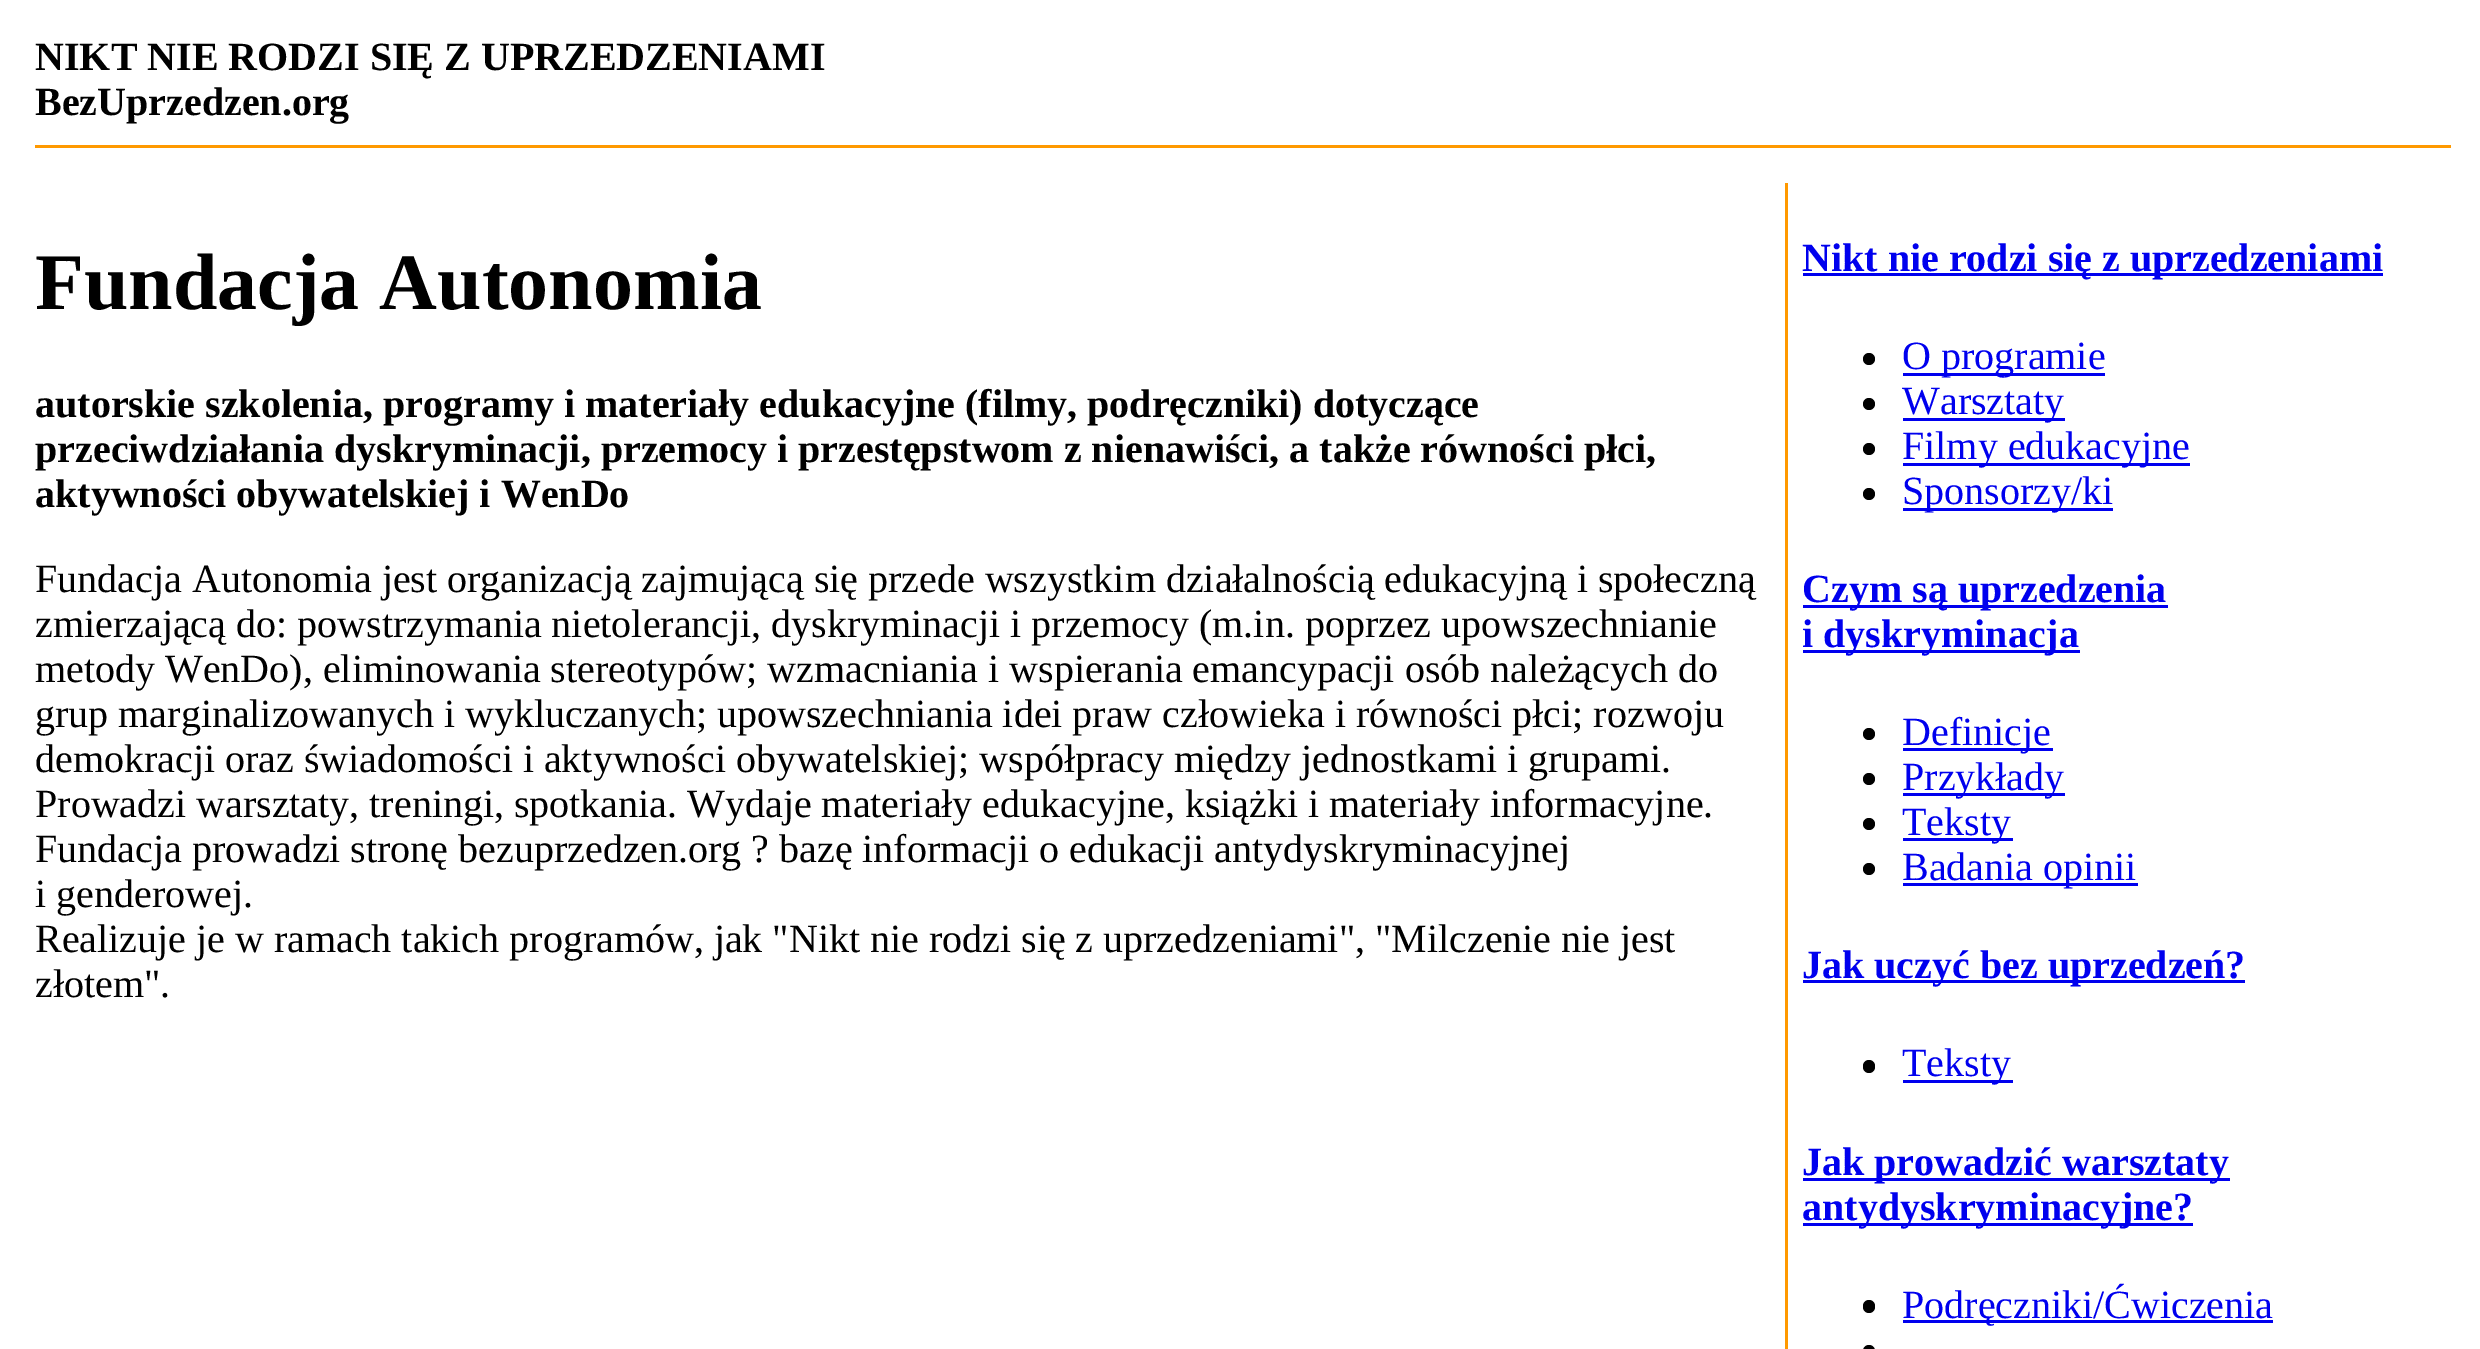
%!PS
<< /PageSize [2480 1349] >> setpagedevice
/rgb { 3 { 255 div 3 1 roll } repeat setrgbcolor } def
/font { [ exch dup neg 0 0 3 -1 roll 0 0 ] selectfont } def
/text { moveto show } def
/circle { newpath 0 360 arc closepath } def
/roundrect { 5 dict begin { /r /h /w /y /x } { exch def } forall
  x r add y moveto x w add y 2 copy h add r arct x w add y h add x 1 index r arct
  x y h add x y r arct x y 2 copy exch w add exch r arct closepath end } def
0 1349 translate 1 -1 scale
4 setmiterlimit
255 255 255 rgb
0 0 2480 1349 rectfill
255 153 0 rgb
35 145 2416 3 rectfill
1785 183 3 1166 rectfill
0 0 238 rgb
1803 273 580 3 rectfill
0 0 0 rgb
1869 359 6 circle fill
0 0 238 rgb
1903 373 202 3 rectfill
0 0 0 rgb
1869 404 6 circle fill
0 0 238 rgb
1903 418 162 3 rectfill
0 0 0 rgb
1869 449 6 circle fill
0 0 238 rgb
1903 463 287 3 rectfill
0 0 0 rgb
1869 494 6 circle fill
0 0 238 rgb
1903 508 210 3 rectfill
1803 605 365 3 rectfill
1803 650 277 3 rectfill
0 0 0 rgb
1869 734 6 circle fill
0 0 238 rgb
1903 748 150 3 rectfill
0 0 0 rgb
1869 779 6 circle fill
0 0 238 rgb
1903 793 162 3 rectfill
0 0 0 rgb
1869 824 6 circle fill
0 0 238 rgb
1903 838 110 3 rectfill
0 0 0 rgb
1869 869 6 circle fill
0 0 238 rgb
1903 883 235 3 rectfill
1803 980 442 3 rectfill
0 0 0 rgb
1863 1060 12 13 6 roundrect fill
0 0 238 rgb
1903 1080 110 3 rectfill
1803 1178 427 3 rectfill
1803 1223 390 3 rectfill
0 0 0 rgb
1863 1300 12 13 6 roundrect fill
0 0 238 rgb
1903 1320 370 3 rectfill
0 0 0 rgb
1863 1345 12 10 6 roundrect fill
/LiberationSerif-Bold 40 font
(NIKT NIE RODZI SIĘ Z UPRZEDZENIAMI) 35 70 text
(BezUprzedzen.org) 35 115 text
/LiberationSerif-Bold 80 font
(Fundacja Autonomia) 35 309 text
/LiberationSerif-Bold 40 font
(autorskie szkolenia, programy i materiały edukacyjne \(filmy, podręczniki\) dotyczące) 35 417 text
(przeciwdziałania dyskryminacji, przemocy i przestępstwom z nienawiści, a także równości płci,) 35 462 text
(aktywności obywatelskiej i WenDo) 35 507 text
/LiberationSerif-Regular 40 font
(Fundacja Autonomia jest organizacją zajmującą się przede wszystkim działalnością edukacyjną i społeczną) 35 592 text
(zmierzającą do: powstrzymania nietolerancji, dyskryminacji i przemocy \(m.in. poprzez upowszechnianie) 35 637 text
(metody WenDo\), eliminowania stereotypów; wzmacniania i wspierania emancypacji osób należących do) 35 682 text
(grup marginalizowanych i wykluczanych; upowszechniania idei praw człowieka i równości płci; rozwoju) 35 727 text
(demokracji oraz świadomości i aktywności obywatelskiej; współpracy między jednostkami i grupami.) 35 772 text
(Prowadzi warsztaty, treningi, spotkania. Wydaje materiały edukacyjne, książki i materiały informacyjne.) 35 817 text
(Fundacja prowadzi stronę bezuprzedzen.org ? bazę informacji o edukacji antydyskryminacyjnej) 35 862 text
(i genderowej.) 35 907 text
(Realizuje je w ramach takich programów, jak "Nikt nie rodzi się z uprzedzeniami", "Milczenie nie jest) 35 952 text
(złotem".) 35 997 text
/LiberationSerif-Bold 40 font
0 0 238 rgb
(Nikt nie rodzi się z uprzedzeniami) 1802 271 text
/LiberationSerif-Regular 40 font
(O programie) 1902 369 text
(Warsztaty) 1902 414 text
(Filmy edukacyjne) 1902 459 text
(Sponsorzy/ki) 1902 504 text
/LiberationSerif-Bold 40 font
(Czym są uprzedzenia) 1802 602 text
(i dyskryminacja) 1802 647 text
/LiberationSerif-Regular 40 font
(Definicje) 1902 745 text
(Przykłady) 1902 790 text
(Teksty) 1902 835 text
(Badania opinii) 1902 880 text
/LiberationSerif-Bold 40 font
(Jak uczyć bez uprzedzeń?) 1802 978 text
/LiberationSerif-Regular 40 font
(Teksty) 1902 1076 text
/LiberationSerif-Bold 40 font
(Jak prowadzić warsztaty) 1802 1175 text
(antydyskryminacyjne?) 1802 1220 text
/LiberationSerif-Regular 40 font
(Podręczniki/Ćwiczenia) 1902 1318 text
showpage
